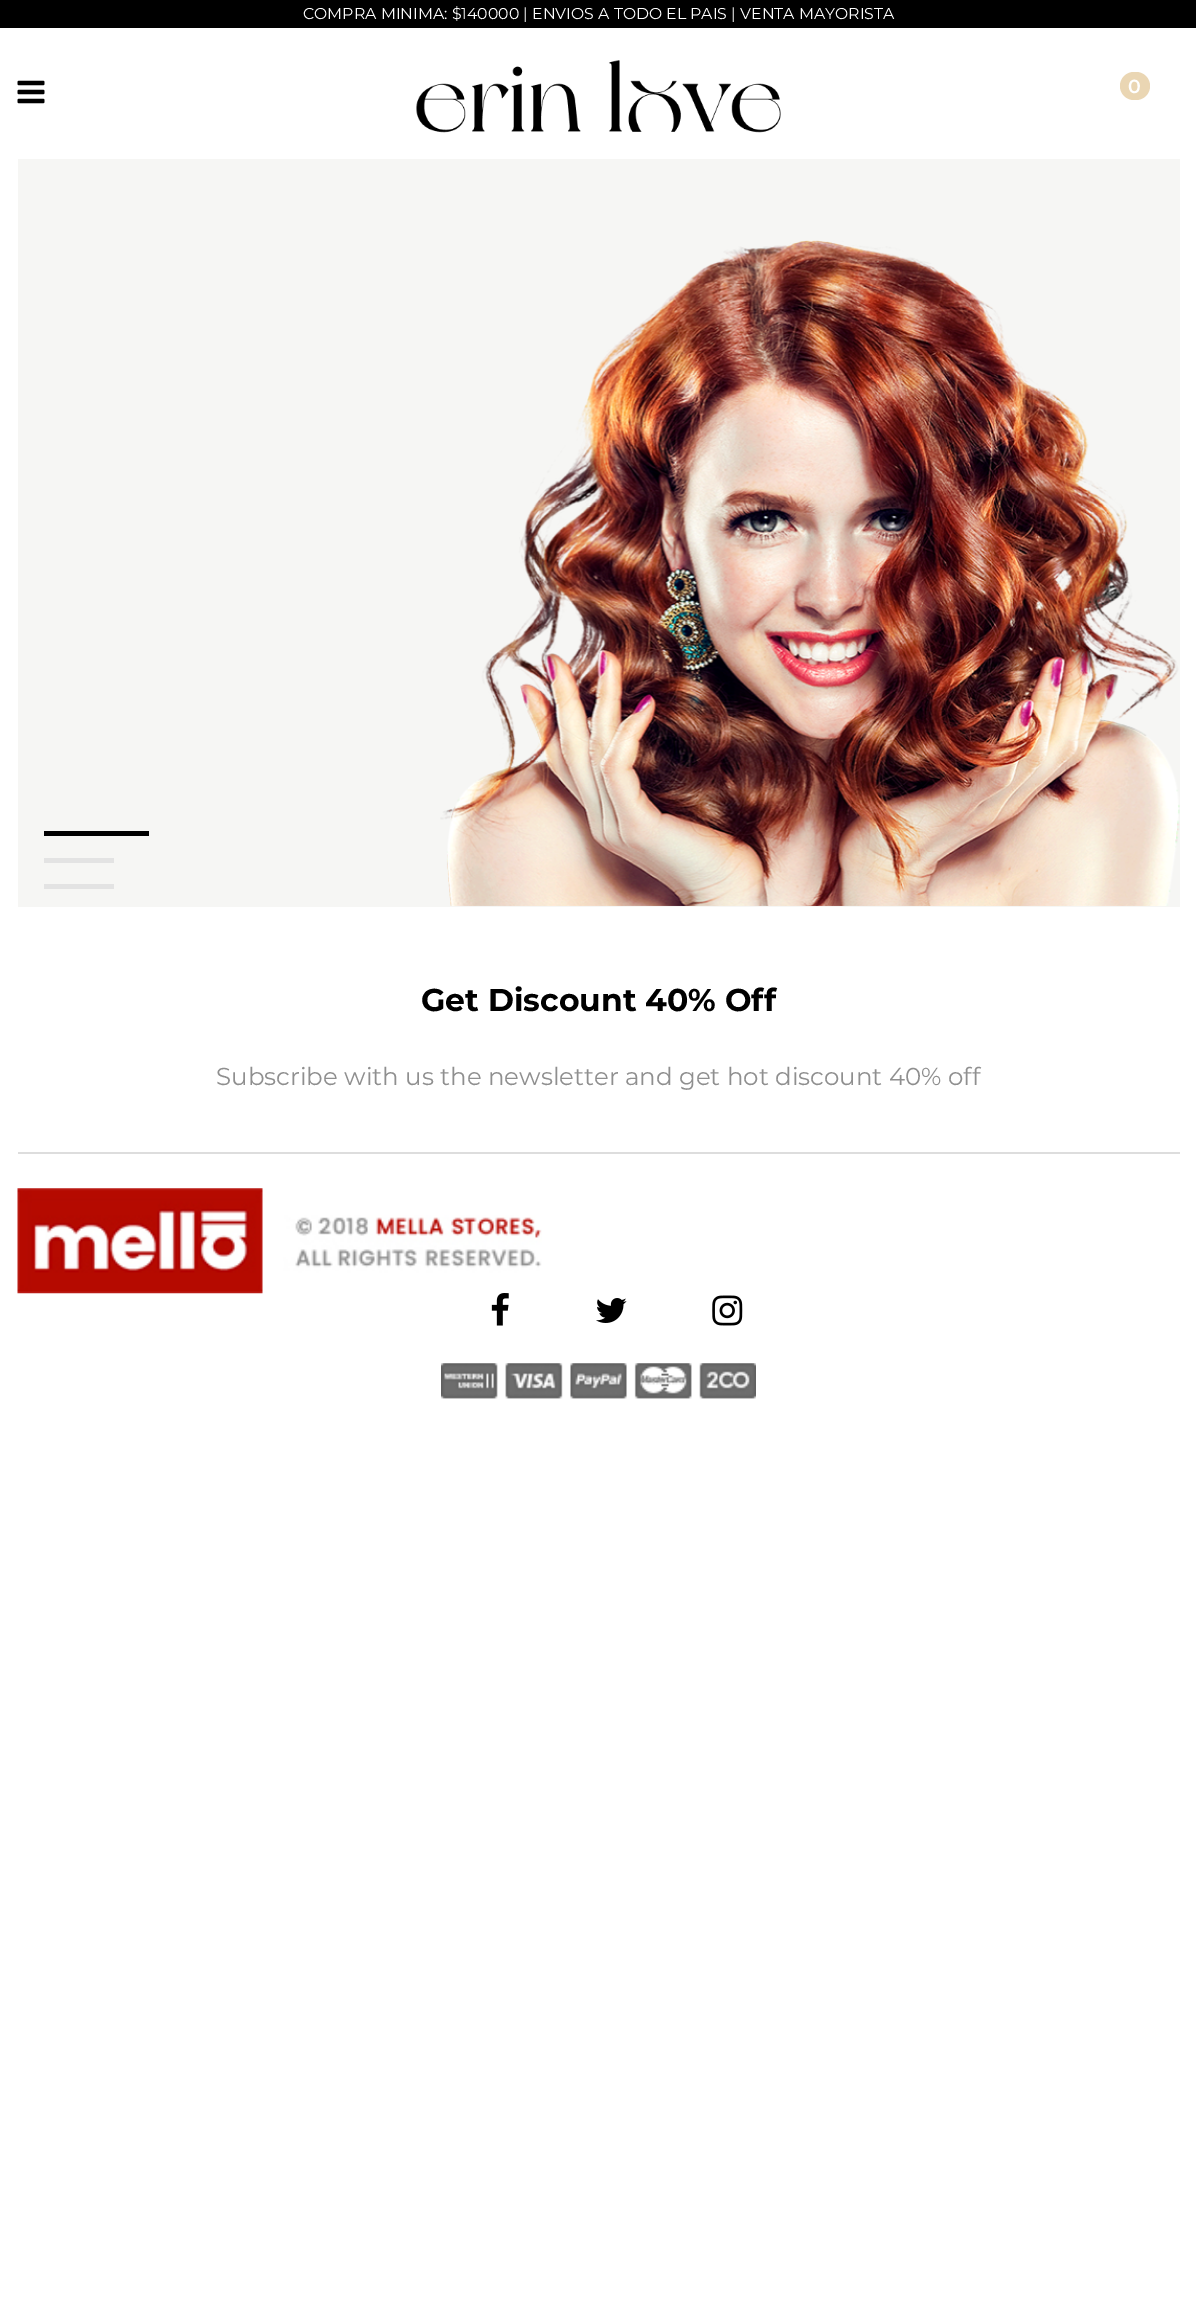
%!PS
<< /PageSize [1196 2319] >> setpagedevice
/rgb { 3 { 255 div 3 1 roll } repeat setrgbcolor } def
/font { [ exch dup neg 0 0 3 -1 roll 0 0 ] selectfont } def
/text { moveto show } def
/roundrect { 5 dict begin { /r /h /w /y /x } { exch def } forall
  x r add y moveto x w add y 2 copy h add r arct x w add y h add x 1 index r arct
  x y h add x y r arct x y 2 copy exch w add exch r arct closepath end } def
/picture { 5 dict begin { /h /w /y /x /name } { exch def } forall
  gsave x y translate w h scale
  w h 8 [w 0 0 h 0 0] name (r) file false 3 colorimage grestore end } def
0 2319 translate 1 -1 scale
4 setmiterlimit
255 255 255 rgb
0 0 1196 2319 rectfill
0 0 0 rgb
0 0 1196 28 rectfill
(img_01.rgb) 17 80 28 24 picture
(img_02.rgb) 416 60 365 73 picture
234 214 179 rgb
1120 72 30 28 14 roundrect fill
246 246 244 rgb
18 159 1162 748 rectfill
(img_03.rgb) 440 240 740 666 picture
0 0 0 rgb
44 831 105 5 rectfill
227 227 227 rgb
44 858 70 5 rectfill
44 884 70 5 rectfill
221 221 221 rgb
18 1152 1162 2 rectfill
(img_04.rgb) 17 1188 525 106 picture
(img_05.rgb) 491 1293 18 33 picture
(img_06.rgb) 596 1298 31 25 picture
(img_07.rgb) 712 1295 31 31 picture
(img_08.rgb) 441 1363 315 36 picture
/Montserrat-Regular 15.75 font
255 255 255 rgb
(COMPRA MINIMA: $140000 | ENVIOS A TODO EL PAIS | VENTA MAYORISTA) 303 19 text
/Montserrat-SemiBold 19 font
(0) 1128 93 text
/Montserrat-Bold 31.5 font
0 0 0 rgb
(Get Discount 40% Off) 421 1011 text
/Montserrat-Regular 24.5 font
143 143 143 rgb
(Subscribe with us the newsletter and get hot discount 40% off) 216 1085 text
showpage
